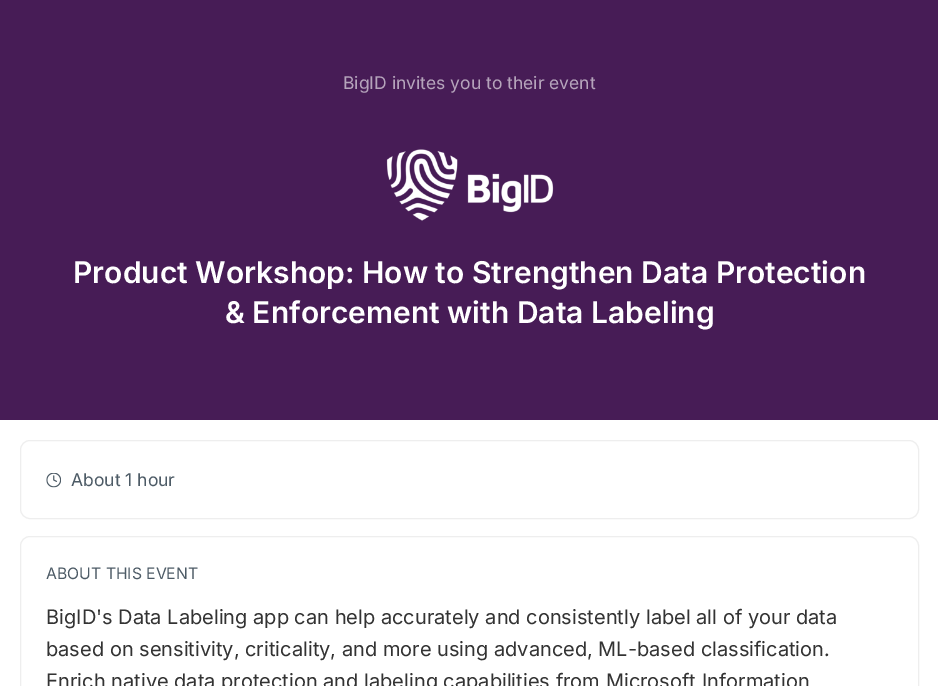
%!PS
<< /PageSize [938 686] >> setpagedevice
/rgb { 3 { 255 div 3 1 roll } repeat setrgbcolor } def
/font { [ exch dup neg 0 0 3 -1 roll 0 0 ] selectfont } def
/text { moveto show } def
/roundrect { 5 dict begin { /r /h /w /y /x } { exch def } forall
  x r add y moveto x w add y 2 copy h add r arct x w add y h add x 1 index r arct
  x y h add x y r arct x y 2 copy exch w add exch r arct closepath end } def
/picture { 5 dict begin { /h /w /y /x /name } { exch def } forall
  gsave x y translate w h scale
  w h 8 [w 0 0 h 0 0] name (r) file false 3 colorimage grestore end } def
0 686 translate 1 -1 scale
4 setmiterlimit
255 255 255 rgb
0 0 938 686 rectfill
71 28 86 rgb
0 0 938 420 rectfill
(img_01.rgb) 386 149 168 72 picture
238 238 238 rgb
20.5 440.5 898 78 9.5 roundrect stroke
(img_02.rgb) 46 473 15 15 picture
20.5 536.5 898 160 9.5 roundrect stroke
/Inter-Regular 17.5 font
181 164 187 rgb
(BigID invites you to their event) 343 89 text
/Inter-SemiBold 30 font
255 255 255 rgb
(Product Workshop: How to Strengthen Data Protection) 73 283 text
(& Enforcement with Data Labeling) 225 323 text
/Inter-Regular 17.5 font
77 91 102 rgb
(About 1 hour) 71 486 text
/Inter-Regular 15.75 font
(ABOUT THIS EVENT) 46 579 text
/Inter-Regular 20 font
51 51 51 rgb
(BigID's Data Labeling app can help accurately and consistently label all of your data) 46 624 text
(based on sensitivity, criticality, and more using advanced, ML-based classification.) 46 656 text
(Enrich native data protection and labeling capabilities from Microsoft Information) 46 688 text
showpage
